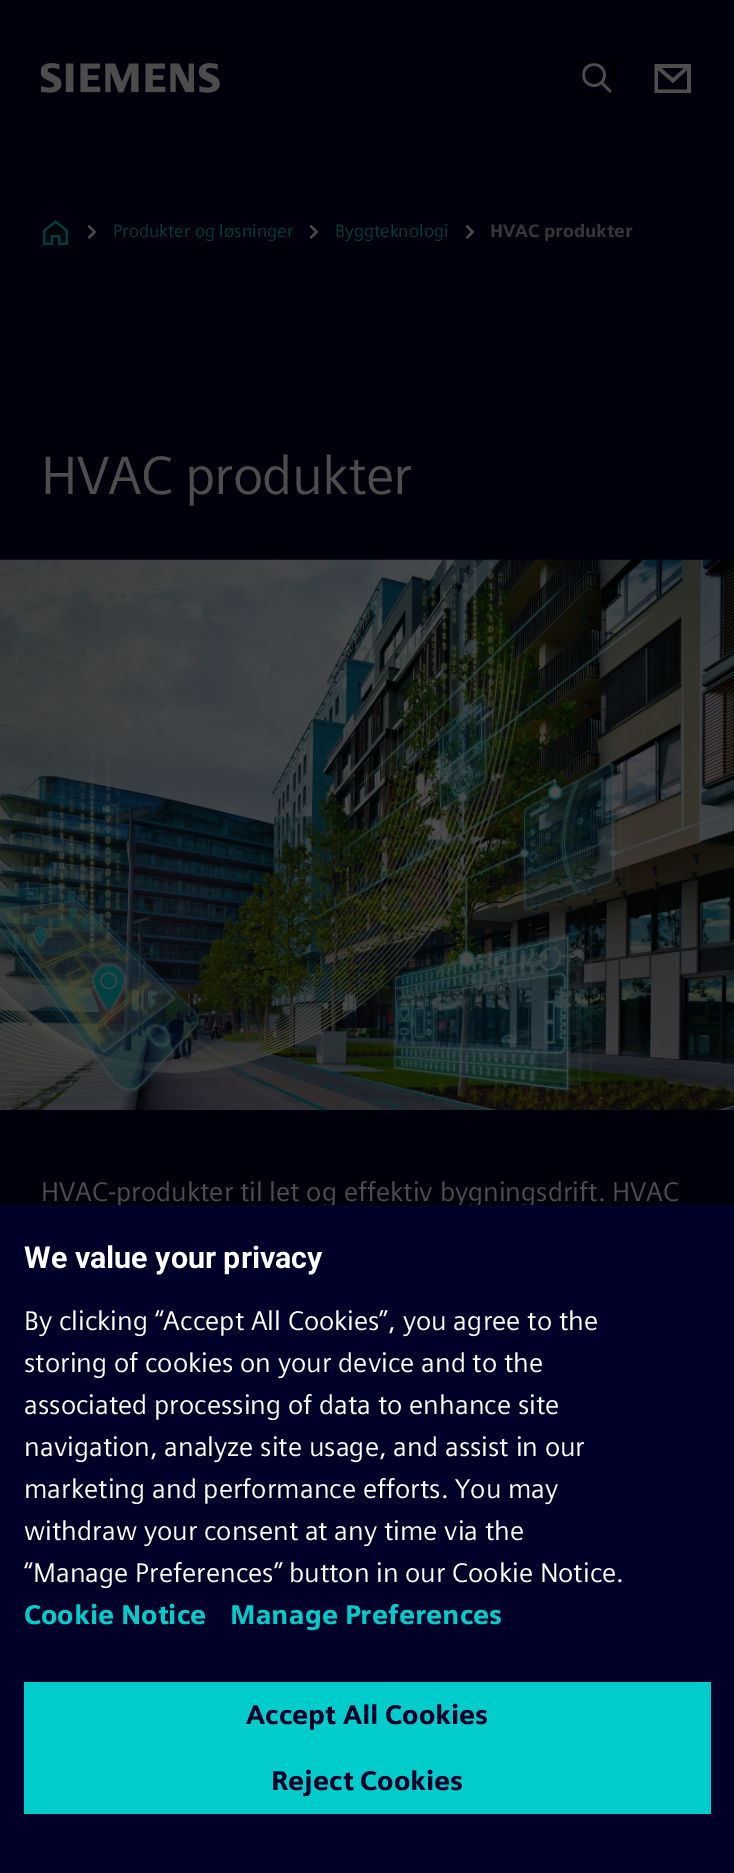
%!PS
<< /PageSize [734 1873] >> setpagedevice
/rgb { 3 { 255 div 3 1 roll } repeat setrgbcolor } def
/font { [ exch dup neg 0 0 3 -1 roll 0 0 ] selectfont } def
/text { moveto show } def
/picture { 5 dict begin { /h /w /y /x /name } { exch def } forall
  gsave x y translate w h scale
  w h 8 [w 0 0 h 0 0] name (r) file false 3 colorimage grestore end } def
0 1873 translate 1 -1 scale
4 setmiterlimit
0 0 12 rgb
0 0 734 1873 rectfill
(img_01.rgb) 41 63 179 30 picture
(img_02.rgb) 582 63 30 30 picture
0 0 0 rgb
3 setlinewidth
580.5 61.5 33 33 rectstroke
77 77 77 rgb
654.5 64 moveto 0 29 rlineto 36.5 0 rlineto 0 -29 rlineto closepath 684.5 68 moveto -11.5 10 rlineto -12 -10 rlineto closepath 658 70 moveto 0 19.5 rlineto 29 0 rlineto 0 -19.5 rlineto -14 13 rlineto closepath eofill
(img_03.rgb) 43 220 25 25 picture
(img_04.rgb) 87 224 10 15 picture
(img_04.rgb) 309 224 10 15 picture
(img_04.rgb) 465 224 10 15 picture
(img_05.rgb) 0 559 734 551 picture
/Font-Regular 18 font
0 61 61 rgb
(Produkter og løsninger) 113 237 text
(Byggteknologi) 335 237 text
/Font-Bold 18 font
54 54 57 rgb
(HVAC produkter) 490 237 text
/Font-Regular 54 font
77 77 77 rgb
41 494 moveto -0.75 0 (HVAC produkter) ashow
/Font-Regular 27 font
(HVAC-produkter til let og effektiv bygningsdrift. HVAC) 41 1201 text
0 0 40 rgb
0 1205 734 668 rectfill
/Roboto-Bold 30.4 font
255 255 255 rgb
(We value your privacy) 24 1268 text
/Font-Regular 27 font
(By clicking “Accept All Cookies”, you agree to the) 24 1330 text
(storing of cookies on your device and to the) 24 1372 text
(associated processing of data to enhance site) 24 1414 text
(navigation, analyze site usage, and assist in our) 24 1456 text
(marketing and performance efforts. You may) 24 1498 text
(withdraw your consent at any time via the) 24 1540 text
(“Manage Preferences” button in our Cookie Notice.) 24 1582 text
/Font-Bold 27 font
0 204 204 rgb
(Cookie Notice) 24 1624 text
(Manage Preferences) 230 1624 text
24 1682 687 132 rectfill
0 0 40 rgb
(Accept All Cookies) 246 1724 text
(Reject Cookies) 271 1790 text
showpage
